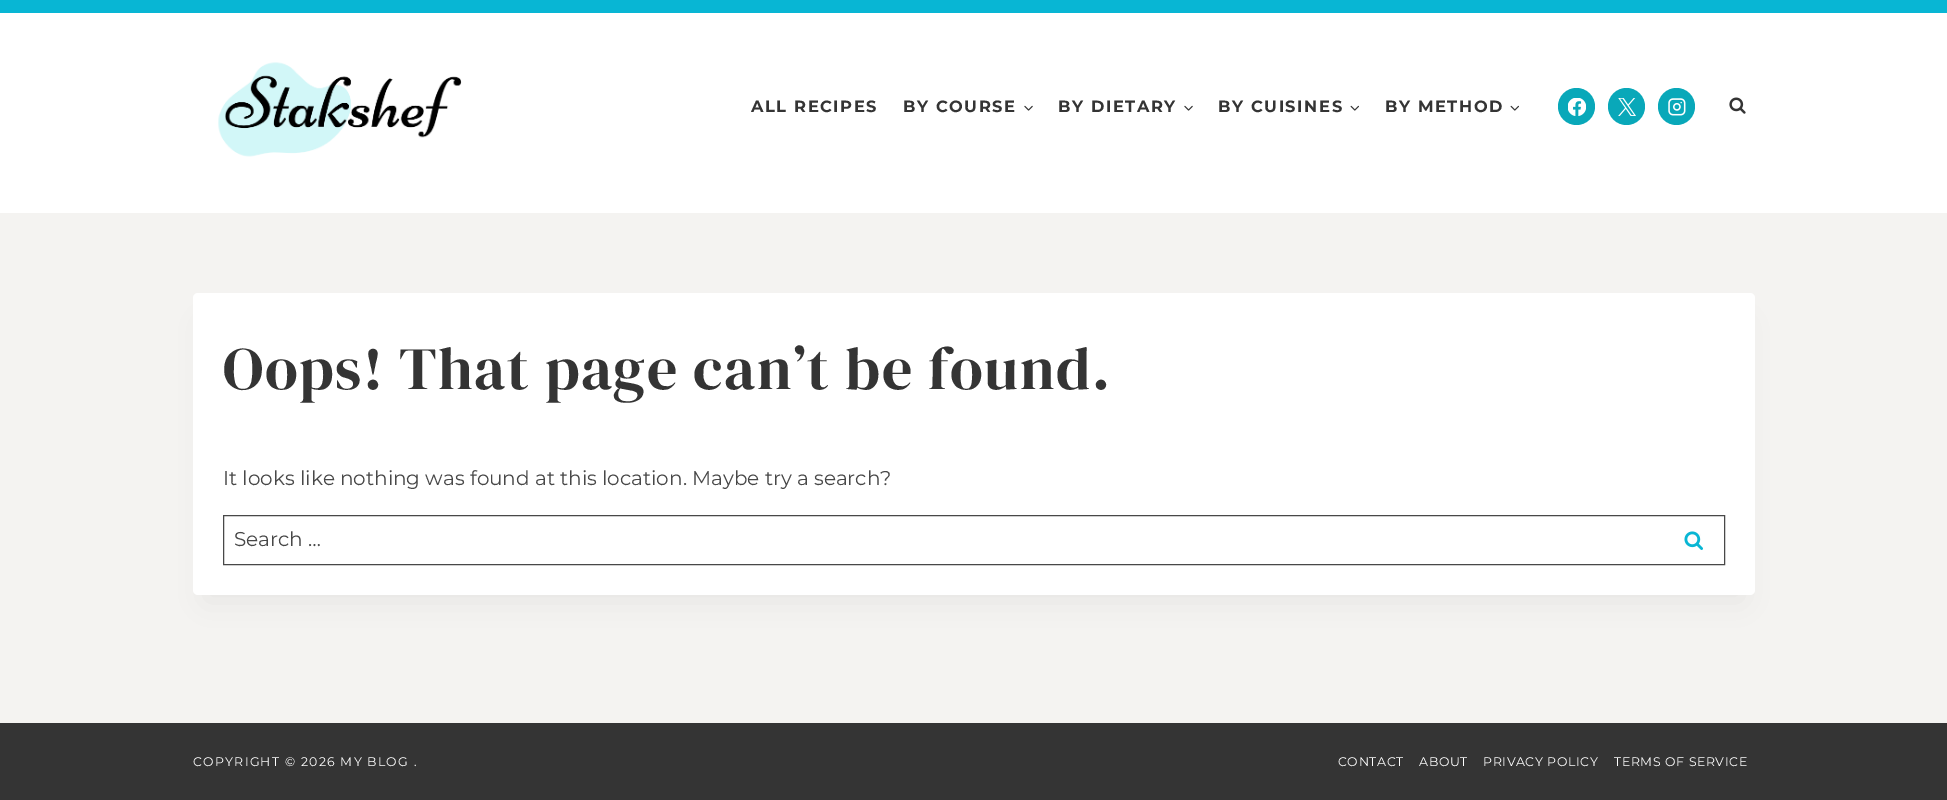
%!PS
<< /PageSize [1947 800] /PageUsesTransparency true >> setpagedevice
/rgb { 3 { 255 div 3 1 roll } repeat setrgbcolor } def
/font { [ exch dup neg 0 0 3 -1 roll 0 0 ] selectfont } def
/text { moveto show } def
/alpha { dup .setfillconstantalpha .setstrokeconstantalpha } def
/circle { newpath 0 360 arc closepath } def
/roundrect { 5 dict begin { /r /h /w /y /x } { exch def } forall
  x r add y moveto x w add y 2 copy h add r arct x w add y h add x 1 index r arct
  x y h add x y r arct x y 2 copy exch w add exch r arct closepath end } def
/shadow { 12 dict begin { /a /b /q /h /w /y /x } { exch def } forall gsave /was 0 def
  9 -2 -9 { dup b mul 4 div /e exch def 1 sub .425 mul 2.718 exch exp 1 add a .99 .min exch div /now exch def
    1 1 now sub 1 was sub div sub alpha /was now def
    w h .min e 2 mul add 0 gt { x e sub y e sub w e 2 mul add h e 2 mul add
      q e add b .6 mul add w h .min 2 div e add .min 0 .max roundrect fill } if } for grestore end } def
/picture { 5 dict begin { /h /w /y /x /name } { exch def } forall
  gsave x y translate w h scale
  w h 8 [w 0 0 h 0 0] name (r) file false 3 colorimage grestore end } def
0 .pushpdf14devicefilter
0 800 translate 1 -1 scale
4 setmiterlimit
244 243 241 rgb
0 0 1947 800 rectfill
255 255 255 rgb
0 13 1947 200 rectfill
8 182 212 rgb
0 0 1947 13 rectfill
(img_01.rgb) 218 62 244 95 picture
(img_02.rgb) 1024 105 9 6 picture
(img_02.rgb) 1184 105 9 6 picture
(img_03.rgb) 1350 105 9 6 picture
(img_03.rgb) 1510 105 9 6 picture
9 168 185 rgb
1576.5 106.5 18.5 circle fill
(img_04.rgb) 1568 98 18 18 picture
1626.5 106.5 18.5 circle fill
(img_05.rgb) 1618 98 18 18 picture
1676.5 106.5 18.5 circle fill
(img_06.rgb) 1668 98 18 18 picture
(img_07.rgb) 1729 97 17 17 picture
0 0 0 rgb
205 324 1538 277 0 15.5 0.05 shadow
255 255 255 rgb
193 293 1562 302 5 roundrect fill
72 72 72 rgb
223.5 515.5 1501 49 rectstroke
(img_08.rgb) 1684 531 19 19 picture
52 52 52 rgb
0 723 1947 77 rectfill
/Montserrat-Bold 16.25 font
751 112 moveto 1.6 0 (ALL RECIPES) ashow
903 112 moveto 1.6 0 (BY COURSE) ashow
1058 112 moveto 1.6 0 (BY DIETARY) ashow
1218 112 moveto 1.6 0 (BY CUISINES) ashow
1385 112 moveto 1.6 0 (BY METHOD) ashow
/DMSerifDisplay-Regular 60 font
223 389 moveto 1.5 0 (Oops! That page can’t be found.) ashow
/Montserrat-Regular 20 font
72 72 72 rgb
(It looks like nothing was found at this location. Maybe try a search?) 223 485 text
(Search …) 234 546 text
/Montserrat-Regular 12.5 font
255 255 255 rgb
193 766 moveto 1.25 0 (COPYRIGHT © 2026 MY BLOG .) ashow
1338 766 moveto 0.6 0 (CONTACT) ashow
1419 766 moveto 0.6 0 (ABOUT) ashow
1483 766 moveto 0.6 0 (PRIVACY POLICY) ashow
1614 766 moveto 0.6 0 (TERMS OF SERVICE) ashow
.poppdf14devicefilter showpage
